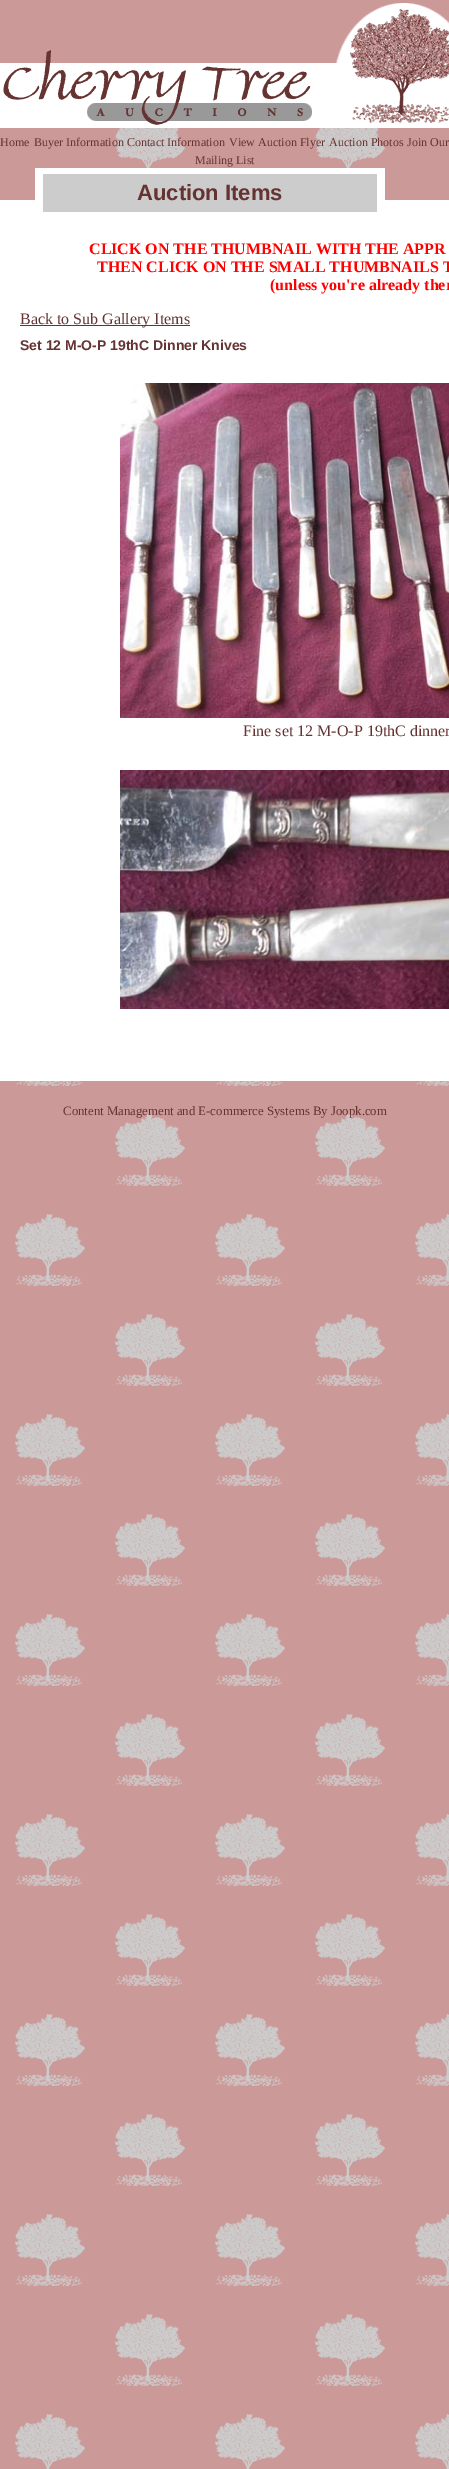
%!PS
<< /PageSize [449 2469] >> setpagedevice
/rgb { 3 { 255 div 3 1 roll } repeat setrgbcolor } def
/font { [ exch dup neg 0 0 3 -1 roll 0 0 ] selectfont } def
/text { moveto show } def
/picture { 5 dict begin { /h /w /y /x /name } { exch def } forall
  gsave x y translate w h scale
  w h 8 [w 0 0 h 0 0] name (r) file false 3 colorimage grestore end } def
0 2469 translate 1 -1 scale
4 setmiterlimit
204 153 153 rgb
0 0 449 2469 rectfill
(img_01.rgb) 15 128 434 2341 picture
(img_02.rgb) 0 14 449 114 picture
(img_03.rgb) 3 3 446 122 picture
255 255 255 rgb
0 200 449 881 rectfill
35 168 350 32 rectfill
204 204 204 rgb
43 174 334 38 rectfill
102 51 51 rgb
20 325 170 1 rectfill
(img_04.rgb) 120 383 329 335 picture
(img_05.rgb) 120 770 329 239 picture
/LiberationSerif-Regular 12 font
(Home) 0 146 text
(Buyer Information) 34 146 text
(Contact Information) 127 146 text
(View Auction Flyer) 229 146 text
(Auction Photos) 329 146 text
(Join Our) 407 146 text
(Mailing List) 195 164 text
/LiberationSans-Bold 22 font
(Auction Items) 137 200 text
/LiberationSerif-Bold 16 font
255 0 0 rgb
(CLICK ON THE THUMBNAIL WITH THE APPR) 89 254 text
(THEN CLICK ON THE SMALL THUMBNAILS T) 97 272 text
(\(unless you're already ther) 270 290 text
/LiberationSerif-Regular 16 font
102 51 51 rgb
(Back to Sub Gallery Items) 20 324 text
/LiberationSans-Bold 14 font
(Set 12 M-O-P 19thC Dinner Knives) 20 350 text
/LiberationSerif-Regular 16 font
(Fine set 12 M-O-P 19thC dinner) 243 736 text
/LiberationSerif-Regular 12.8 font
(Content Management and E-commerce Systems By Joopk.com) 63 1115 text
showpage
